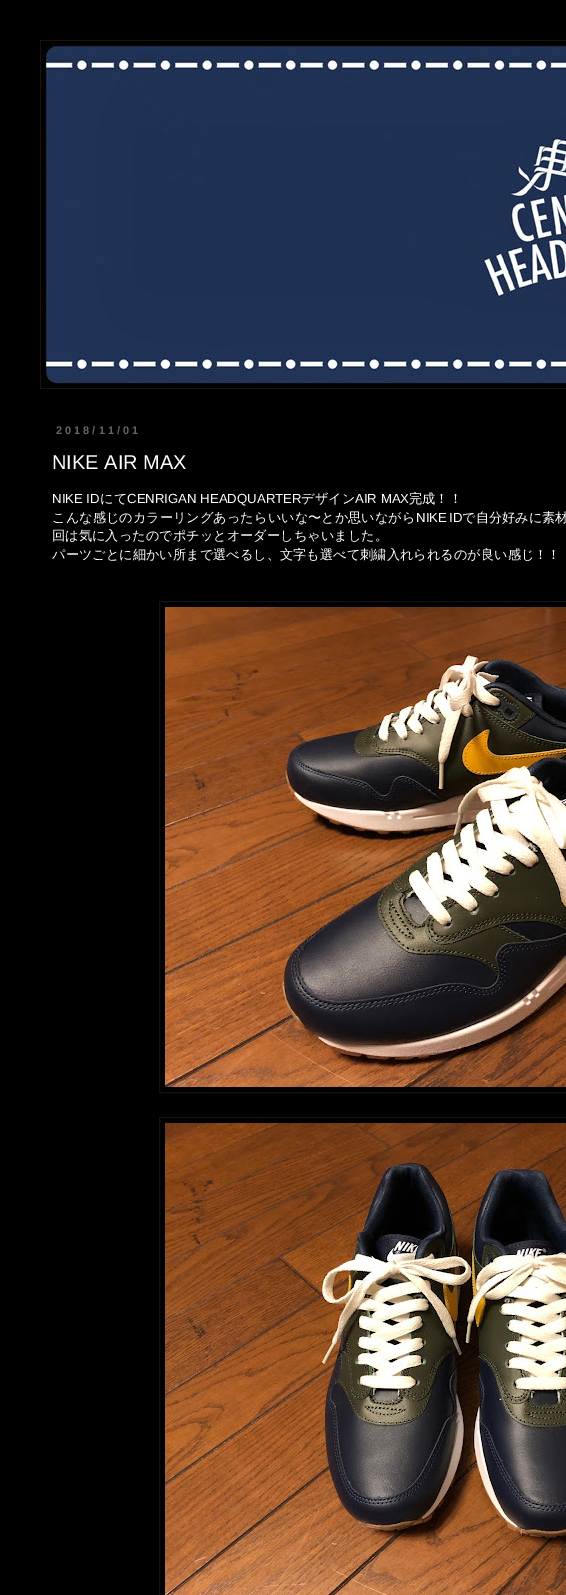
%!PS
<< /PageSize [566 1595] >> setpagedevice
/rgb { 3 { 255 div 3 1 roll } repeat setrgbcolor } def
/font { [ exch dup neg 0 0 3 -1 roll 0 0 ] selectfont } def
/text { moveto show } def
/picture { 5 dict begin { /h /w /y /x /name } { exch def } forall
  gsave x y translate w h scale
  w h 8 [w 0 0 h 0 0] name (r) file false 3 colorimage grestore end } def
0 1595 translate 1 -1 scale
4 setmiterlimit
0 0 0 rgb
0 0 566 1595 rectfill
(img_01.rgb) 40 40 526 349 picture
19 19 19 rgb
159.5 601.5 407 491 rectstroke
(img_02.rgb) 165 607 401 480 picture
159.5 1117.5 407 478 rectstroke
(img_03.rgb) 165 1123 401 472 picture
/LiberationSans-Bold 11 font
102 102 102 rgb
56 434 moveto 3 0 (2018/11/01) ashow
/LiberationSans-Regular 20 font
255 255 255 rgb
(NIKE AIR MAX) 52 469 text
/LiberationSans-Regular 13.2 font
(NIKE ID) 52 503 text
/WenQuanYiZenHei-Medium 13.2 font
(にて) 100 503 text
/LiberationSans-Regular 13.2 font
(CENRIGAN HEADQUARTER) 127 503 text
/WenQuanYiZenHei-Medium 13.2 font
(デザイン) 301 503 text
/LiberationSans-Regular 13.2 font
(AIR MAX) 355 503 text
/WenQuanYiZenHei-Medium 13.2 font
(完成！！) 409 503 text
(こんな感じのカラーリングあったらいいな〜とか思いながら) 52 522 text
/LiberationSans-Regular 13.2 font
416 522 moveto -1 0 32 (NIKE ID) widthshow
/WenQuanYiZenHei-Medium 13.2 font
(で自分好みに素材) 462 522 text
(回は気に入ったのでポチッとオーダーしちゃいました。) 52 540 text
(パーツごとに細かい所まで選べるし、文字も選べて刺繍入れられるのが良い感じ！！) 52 559 text
showpage
